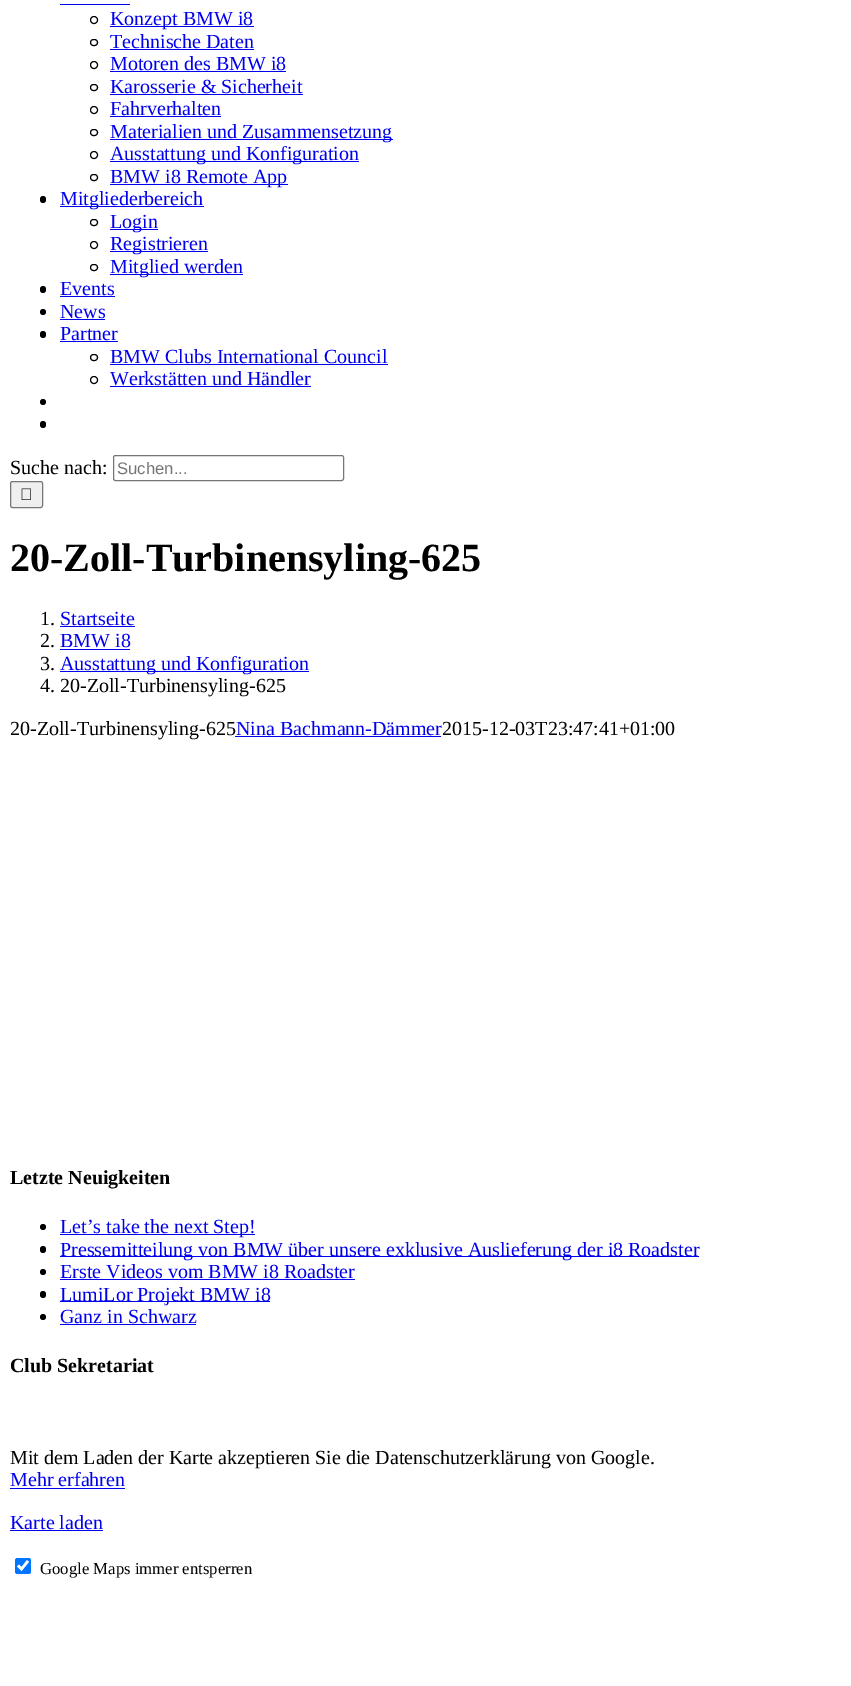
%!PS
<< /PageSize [851 1686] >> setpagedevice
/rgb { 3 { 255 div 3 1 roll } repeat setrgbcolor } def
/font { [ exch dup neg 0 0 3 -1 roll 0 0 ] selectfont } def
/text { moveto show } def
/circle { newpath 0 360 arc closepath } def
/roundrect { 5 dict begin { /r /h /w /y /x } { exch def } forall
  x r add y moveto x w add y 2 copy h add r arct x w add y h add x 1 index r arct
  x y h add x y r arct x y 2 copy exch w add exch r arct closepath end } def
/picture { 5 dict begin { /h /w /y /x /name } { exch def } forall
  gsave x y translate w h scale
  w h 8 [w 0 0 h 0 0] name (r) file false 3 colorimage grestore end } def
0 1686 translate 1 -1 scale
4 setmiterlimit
255 255 255 rgb
0 0 851 1686 rectfill
0 0 238 rgb
60 4 70 1 rectfill
0 0 0 rgb
94 20 3.5 circle stroke
0 0 238 rgb
110 26 144 1 rectfill
0 0 0 rgb
90.5 39.5 7 6 3 roundrect stroke
0 0 238 rgb
110 49 144 1 rectfill
0 0 0 rgb
94 65 3.5 circle stroke
0 0 238 rgb
110 71 176 1 rectfill
0 0 0 rgb
90.5 84.5 7 6 3 roundrect stroke
0 0 238 rgb
110 94 193 1 rectfill
0 0 0 rgb
94 110 3.5 circle stroke
0 0 238 rgb
110 116 111 1 rectfill
0 0 0 rgb
90.5 129.5 7 6 3 roundrect stroke
0 0 238 rgb
110 139 283 1 rectfill
0 0 0 rgb
94 155 3.5 circle stroke
0 0 238 rgb
110 161 249 1 rectfill
0 0 0 rgb
90.5 174.5 7 6 3 roundrect stroke
0 0 238 rgb
110 184 178 1 rectfill
0 0 0 rgb
40 196 6 7 3 roundrect fill
0 0 238 rgb
60 206 144 1 rectfill
0 0 0 rgb
90.5 219.5 7 6 3 roundrect stroke
0 0 238 rgb
110 229 48 1 rectfill
0 0 0 rgb
94 245 3.5 circle stroke
0 0 238 rgb
110 251 98 1 rectfill
0 0 0 rgb
90.5 264.5 7 6 3 roundrect stroke
0 0 238 rgb
110 274 133 1 rectfill
0 0 0 rgb
40 286 6 7 3 roundrect fill
0 0 238 rgb
60 296 55 1 rectfill
0 0 0 rgb
43 312 3 circle fill
0 0 238 rgb
60 319 45 1 rectfill
0 0 0 rgb
40 331 6 7 3 roundrect fill
0 0 238 rgb
60 341 58 1 rectfill
0 0 0 rgb
90.5 354.5 7 6 3 roundrect stroke
0 0 238 rgb
110 364 278 1 rectfill
0 0 0 rgb
94 380 3.5 circle stroke
0 0 238 rgb
110 386 201 1 rectfill
0 0 0 rgb
43 402 3 circle fill
40 421 6 7 3 roundrect fill
118 118 118 rgb
113.5 455.5 230 25 2 roundrect stroke
239 239 239 rgb
10.5 481.5 32 26 2 roundrect gsave fill grestore
118 118 118 rgb
stroke
(img_01.rgb) 21 488 10 12 picture
0 0 238 rgb
60 626 75 1 rectfill
60 649 70 1 rectfill
60 671 249 1 rectfill
235 736 206 1 rectfill
0 0 0 rgb
43 1227 3 circle fill
0 0 238 rgb
60 1234 195 1 rectfill
0 0 0 rgb
40 1246 6 7 3 roundrect fill
0 0 238 rgb
60 1256 639 1 rectfill
0 0 0 rgb
43 1272 3 circle fill
0 0 238 rgb
60 1279 295 1 rectfill
0 0 0 rgb
40 1291 6 7 3 roundrect fill
0 0 238 rgb
60 1301 210 1 rectfill
0 0 0 rgb
43 1317 3 circle fill
0 0 238 rgb
60 1324 136 1 rectfill
10 1488 115 1 rectfill
10 1530 93 1 rectfill
0 117 255 rgb
15 1558 16 16 2.5 roundrect fill
255 255 255 rgb
2.6 setlinewidth
18 1565.5 moveto 3.5 3.5 rlineto 6.5 -8 rlineto stroke
/LiberationSerif-Regular 20 font
0 0 238 rgb
(Konzept BMW i8) 110 25 text
(Technische Daten) 110 48 text
(Motoren des BMW i8) 110 70 text
(Karosserie & Sicherheit) 110 93 text
(Fahrverhalten) 110 115 text
(Materialien und Zusammensetzung) 110 138 text
(Ausstattung und Konfiguration) 110 160 text
(BMW i8 Remote App) 110 183 text
(Mitgliederbereich) 60 205 text
(Login) 110 228 text
(Registrieren) 110 250 text
(Mitglied werden) 110 273 text
(Events) 60 295 text
(News) 60 318 text
(Partner) 60 340 text
(BMW Clubs International Council) 110 363 text
(Werkstätten und Händler) 110 385 text
0 0 0 rgb
(Suche nach:) 10 474 text
/LiberationSans-Regular 16.7 font
117 117 117 rgb
(Suchen...) 117 474 text
/LiberationSerif-Bold 40 font
0 0 0 rgb
(20-Zoll-Turbinensyling-625) 10 571 text
/LiberationSerif-Regular 20 font
(1.) 40 625 text
0 0 238 rgb
(Startseite) 60 625 text
0 0 0 rgb
(2.) 40 647 text
0 0 238 rgb
(BMW i8) 60 647 text
0 0 0 rgb
(3.) 40 670 text
0 0 238 rgb
(Ausstattung und Konfiguration) 60 670 text
0 0 0 rgb
(4. 20-Zoll-Turbinensyling-625) 40 692 text
(20-Zoll-Turbinensyling-625) 10 735 text
0 0 238 rgb
(Nina Bachmann-Dämmer) 236 735 text
0 0 0 rgb
(2015-12-03T23:47:41+01:00) 442 735 text
/LiberationSerif-Bold 20 font
(Letzte Neuigkeiten) 10 1184 text
/LiberationSerif-Regular 20 font
0 0 238 rgb
(Let’s take the next Step!) 60 1233 text
(Pressemitteilung von BMW über unsere exklusive Auslieferung der i8 Roadster) 60 1256 text
(Erste Videos vom BMW i8 Roadster) 60 1278 text
(LumiLor Projekt BMW i8) 60 1301 text
(Ganz in Schwarz) 60 1323 text
/LiberationSerif-Bold 20 font
0 0 0 rgb
(Club Sekretariat) 10 1372 text
/LiberationSerif-Regular 20 font
(Mit dem Laden der Karte akzeptieren Sie die Datenschutzerklärung von Google.) 10 1464 text
0 0 238 rgb
(Mehr erfahren) 10 1486 text
(Karte laden) 10 1529 text
/LiberationSerif-Regular 16.7 font
0 0 0 rgb
(Google Maps immer entsperren) 40 1574 text
showpage
